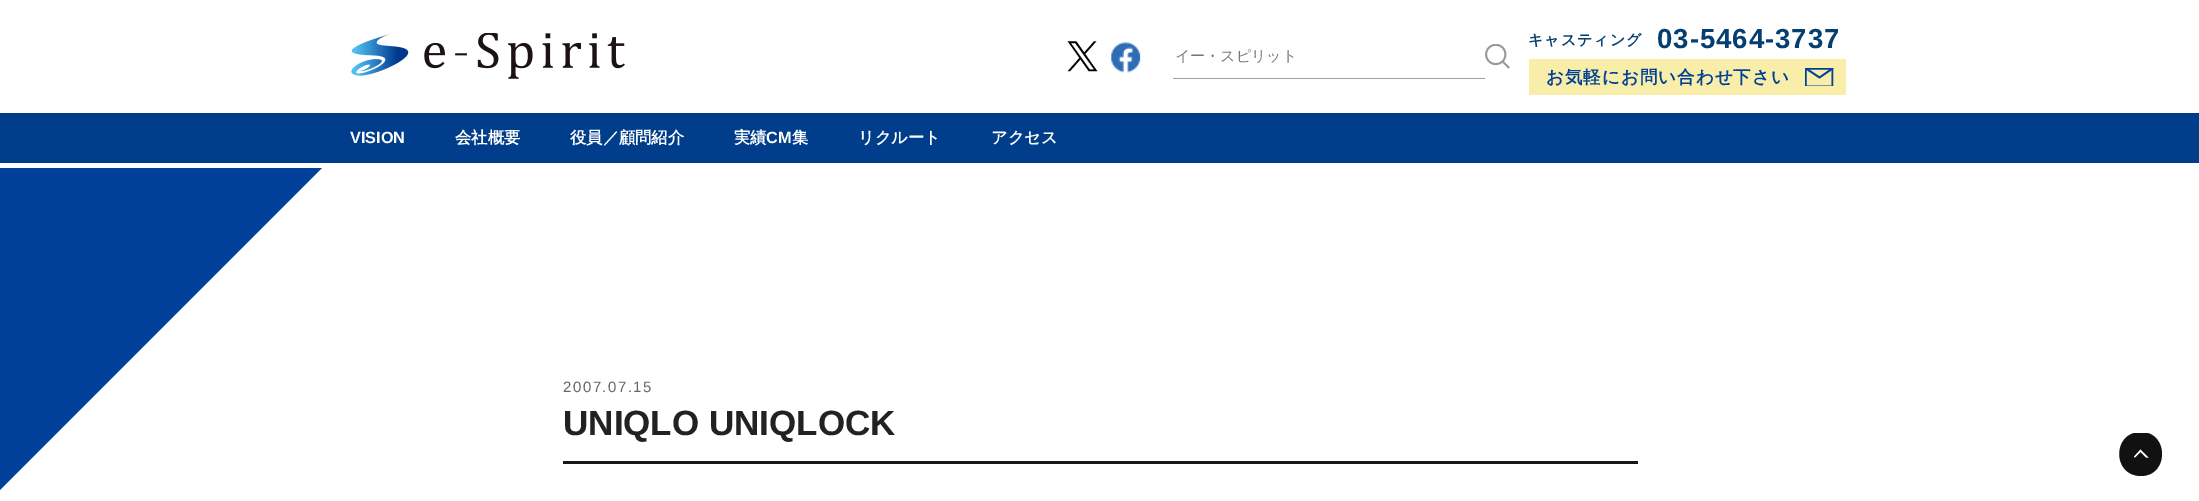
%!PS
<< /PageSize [2199 501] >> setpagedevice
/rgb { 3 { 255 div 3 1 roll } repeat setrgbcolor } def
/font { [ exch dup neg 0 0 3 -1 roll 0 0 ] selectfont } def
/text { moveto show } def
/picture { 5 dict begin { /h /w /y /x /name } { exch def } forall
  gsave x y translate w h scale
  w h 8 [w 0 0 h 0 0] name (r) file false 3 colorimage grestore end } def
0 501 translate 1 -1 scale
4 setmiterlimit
255 255 255 rgb
0 0 2199 501 rectfill
(img_01.rgb) 351 33 274 46 picture
(img_02.rgb) 1067 41 31 31 picture
(img_03.rgb) 1110 42 31 31 picture
159 159 159 rgb
1173 78 312 1 rectfill
(img_04.rgb) 1485 44 25 25 picture
249 238 169 rgb
1529 59 317 36 rectfill
gsave
1805 68 29 18 rectclip
0 64 152 rgb
1.5 setlinewidth
1805.75 68.75 26.5 17.5 rectstroke
1.7 setlinewidth
1 setlinecap
1 setlinejoin
1806 68.5 moveto 13.5 9 rlineto 13 -9 rlineto stroke
grestore
0 62 140 rgb
0 113 2199 50 rectfill
0 64 152 rgb
0 168 moveto 322 0 rlineto -322 322 rlineto closepath fill
24 24 24 rgb
563 461 1075 3 rectfill
gsave
2119 433 44 43 rectclip
17 17 17 rgb
2141 432 moveto 28 0 28 44 0 44 rcurveto -29 0 -29 -44 0 -44 rcurveto closepath fill
grestore
255 255 255 rgb
1.2 setlinewidth
2134.5 457 moveto 6 -6 rlineto 6 6 rlineto 0.5 0 rlineto -6.5 -6.5 rlineto closepath stroke
/WenQuanYiZenHei-Medium 15 font
117 117 117 rgb
(イー・スピリット) 1175 61 text
/WenQuanYiZenHei-Bold 15 font
5 62 112 rgb
1528 45 moveto 1 0 (キャスティング) ashow
/LiberationSans-Bold 27.5 font
1657 48 moveto 1 0 (03-5464-3737) ashow
/WenQuanYiZenHei-Bold 17.5 font
0 64 152 rgb
1546 83 moveto 1 0 (お気軽にお問い合わせ下さい) ashow
/LiberationSans-Bold 16.25 font
255 255 255 rgb
(VISION) 350 143 text
/WenQuanYiZenHei-Bold 16.25 font
(会社概要) 455 143 text
(役員／顧問紹介) 570 143 text
(実績) 734 143 text
/LiberationSans-Bold 16.25 font
(CM) 766 143 text
/WenQuanYiZenHei-Bold 16.25 font
(集) 792 143 text
(リクルート) 858 143 text
(アクセス) 991 143 text
/LiberationSans-Regular 15 font
102 102 102 rgb
563 392 moveto 1.5 0 (2007.07.15) ashow
/LiberationSans-Bold 35 font
34 34 34 rgb
(UNIQLO UNIQLOCK) 563 435 text
showpage
